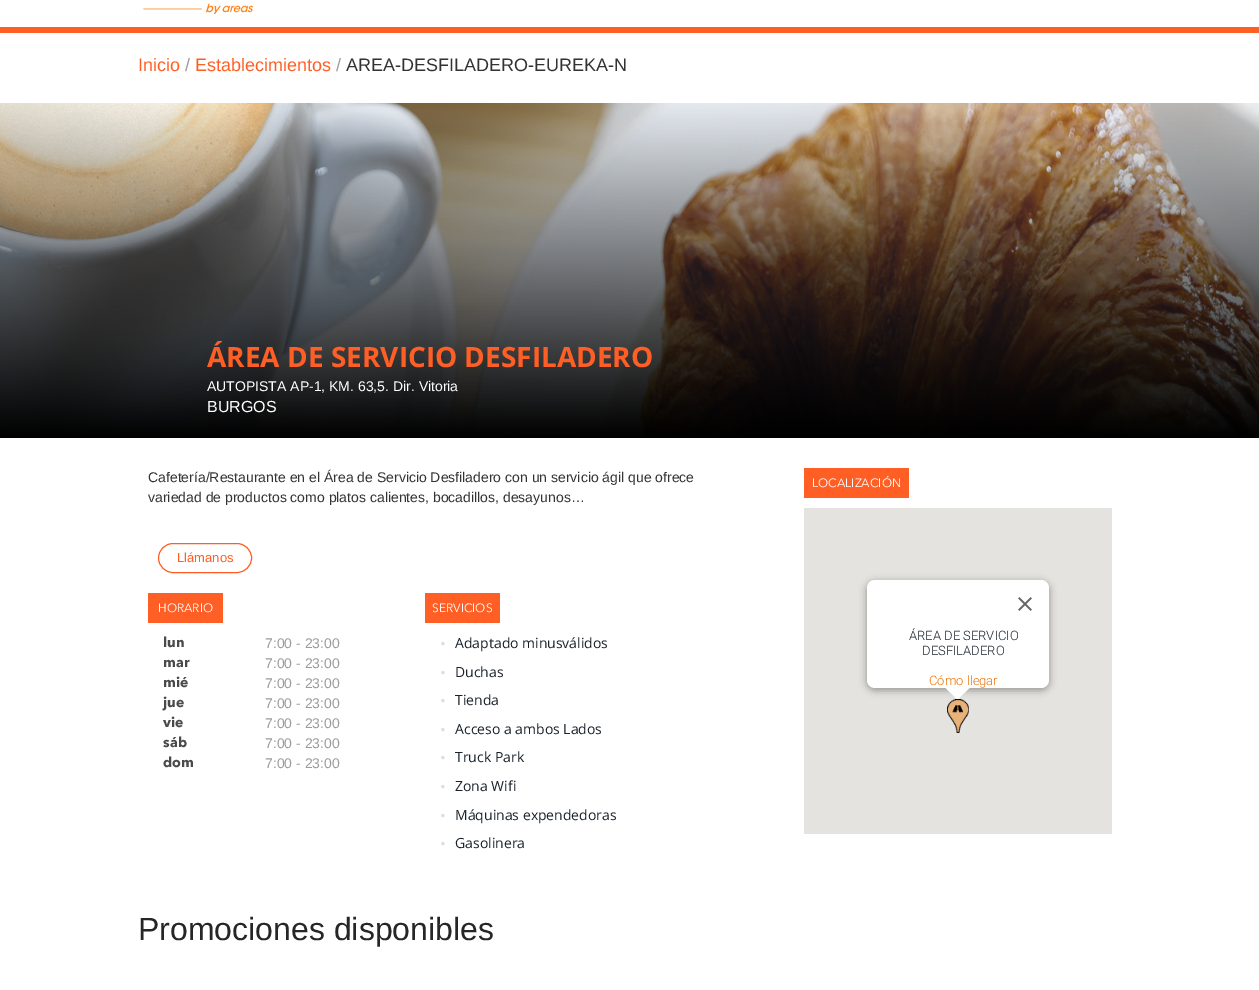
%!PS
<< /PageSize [1259 990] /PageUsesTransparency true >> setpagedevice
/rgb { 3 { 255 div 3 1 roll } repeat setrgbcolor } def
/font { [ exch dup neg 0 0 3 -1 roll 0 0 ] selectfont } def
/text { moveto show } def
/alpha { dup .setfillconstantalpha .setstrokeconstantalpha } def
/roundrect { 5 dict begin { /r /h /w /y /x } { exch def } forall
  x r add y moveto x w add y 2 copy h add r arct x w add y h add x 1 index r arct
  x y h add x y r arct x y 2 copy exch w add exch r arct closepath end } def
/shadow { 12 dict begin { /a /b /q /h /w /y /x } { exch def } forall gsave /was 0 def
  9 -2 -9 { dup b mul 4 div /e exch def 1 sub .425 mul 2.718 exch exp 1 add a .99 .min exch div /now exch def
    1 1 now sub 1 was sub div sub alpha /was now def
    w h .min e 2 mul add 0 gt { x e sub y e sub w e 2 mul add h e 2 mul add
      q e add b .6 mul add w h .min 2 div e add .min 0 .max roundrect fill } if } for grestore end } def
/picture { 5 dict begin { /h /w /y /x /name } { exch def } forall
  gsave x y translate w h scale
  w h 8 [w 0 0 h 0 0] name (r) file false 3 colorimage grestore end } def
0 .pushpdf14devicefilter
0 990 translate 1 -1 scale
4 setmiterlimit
255 255 255 rgb
0 0 1259 990 rectfill
255 95 37 rgb
0 27 1259 6 rectfill
(img_01.rgb) 143 3 110 11 picture
(img_02.rgb) 0 103 1259 335 picture
158.5 543.5 93 29 14.5 roundrect stroke
148 593 75 30 rectfill
425 593 75 30 rectfill
804 468 105 30 rectfill
229 227 223 rgb
804 508 308 326 rectfill
(img_04.rgb) 947 699 22 34 picture
0 0 0 rgb
866 581 184 110 9 3.5 0.3 shadow
255 255 255 rgb
867 580 182 108 8 roundrect fill
(img_03.rgb) 1018 597 14 14 picture
/LiberationSans-Regular 18 font
255 95 37 rgb
(Inicio) 138 71 text
155 155 155 rgb
(/) 185 71 text
255 95 37 rgb
(Establecimientos) 195 71 text
155 155 155 rgb
(/) 336 71 text
51 51 51 rgb
(AREA-DESFILADERO-EUREKA-N) 346 71 text
/OpenSans-Bold 28 font
255 95 37 rgb
(ÁREA DE SERVICIO DESFILADERO) 207 367 text
/LiberationSans-Regular 14 font
255 255 255 rgb
(AUTOPISTA AP-1, KM. 63,5. Dir. Vitoria) 207 391 text
/LiberationSans-Regular 16 font
(BURGOS) 207 412 text
/LiberationSans-Regular 14 font
51 51 51 rgb
(Cafetería/Restaurante en el Área de Servicio Desfiladero con un servicio ágil que ofrece) 148 482 text
(variedad de productos como platos calientes, bocadillos, desayunos…) 148 502 text
/LiberationSans-Regular 13 font
255 95 37 rgb
(Llámanos) 177 562 text
/AvenirNext-Regular 12 font
255 255 255 rgb
(HORARIO) 158 612 text
/AvenirNext-Bold 14 font
74 74 74 rgb
(lun) 163 647 text
(mar) 163 667 text
(mié) 163 687 text
(jue) 163 707 text
(vie) 163 727 text
(sáb) 163 747 text
(dom) 163 767 text
/LiberationSans-Regular 14 font
155 155 155 rgb
(7:00 - 23:00) 265 648 text
(7:00 - 23:00) 265 668 text
(7:00 - 23:00) 265 688 text
(7:00 - 23:00) 265 708 text
(7:00 - 23:00) 265 728 text
(7:00 - 23:00) 265 748 text
(7:00 - 23:00) 265 768 text
/AvenirNext-Regular 12 font
255 255 255 rgb
(SERVICIOS) 432 612 text
/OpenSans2-Bold 20 font
222 222 222 rgb
(.) 440 645 text
/OpenSans-Regular 14 font
25 33 43 rgb
(Adaptado minusválidos) 455 648 text
/OpenSans2-Bold 20 font
222 222 222 rgb
(.) 440 674 text
/OpenSans-Regular 14 font
25 33 43 rgb
(Duchas) 455 677 text
/OpenSans2-Bold 20 font
222 222 222 rgb
(.) 440 702 text
/OpenSans-Regular 14 font
25 33 43 rgb
(Tienda) 455 705 text
/OpenSans2-Bold 20 font
222 222 222 rgb
(.) 440 731 text
/OpenSans-Regular 14 font
25 33 43 rgb
(Acceso a ambos Lados) 455 734 text
/OpenSans2-Bold 20 font
222 222 222 rgb
(.) 440 759 text
/OpenSans-Regular 14 font
25 33 43 rgb
(Truck Park) 455 762 text
/OpenSans2-Bold 20 font
222 222 222 rgb
(.) 440 788 text
/OpenSans-Regular 14 font
25 33 43 rgb
(Zona Wifi) 455 791 text
/OpenSans2-Bold 20 font
222 222 222 rgb
(.) 440 817 text
/OpenSans-Regular 14 font
25 33 43 rgb
(Máquinas expendedoras) 455 820 text
/OpenSans2-Bold 20 font
222 222 222 rgb
(.) 440 845 text
/OpenSans-Regular 14 font
25 33 43 rgb
(Gasolinera) 455 848 text
/AvenirNext-Regular 12 font
255 255 255 rgb
(LOCALIZACIÓN) 812 487 text
/Roboto-Light 13 font
25 33 43 rgb
(ÁREA DE SERVICIO) 909 640 text
(DESFILADERO) 922 655 text
236 114 5 rgb
(Cómo llegar) 929 685 text
255 255 255 rgb
946 688.5 moveto 0 -1 rlineto 24 0 rlineto -12 11.5 rlineto -1 0 rlineto closepath fill
/LiberationSans-Regular 32 font
38 38 38 rgb
(Promociones disponibles) 138 940 text
.poppdf14devicefilter showpage
